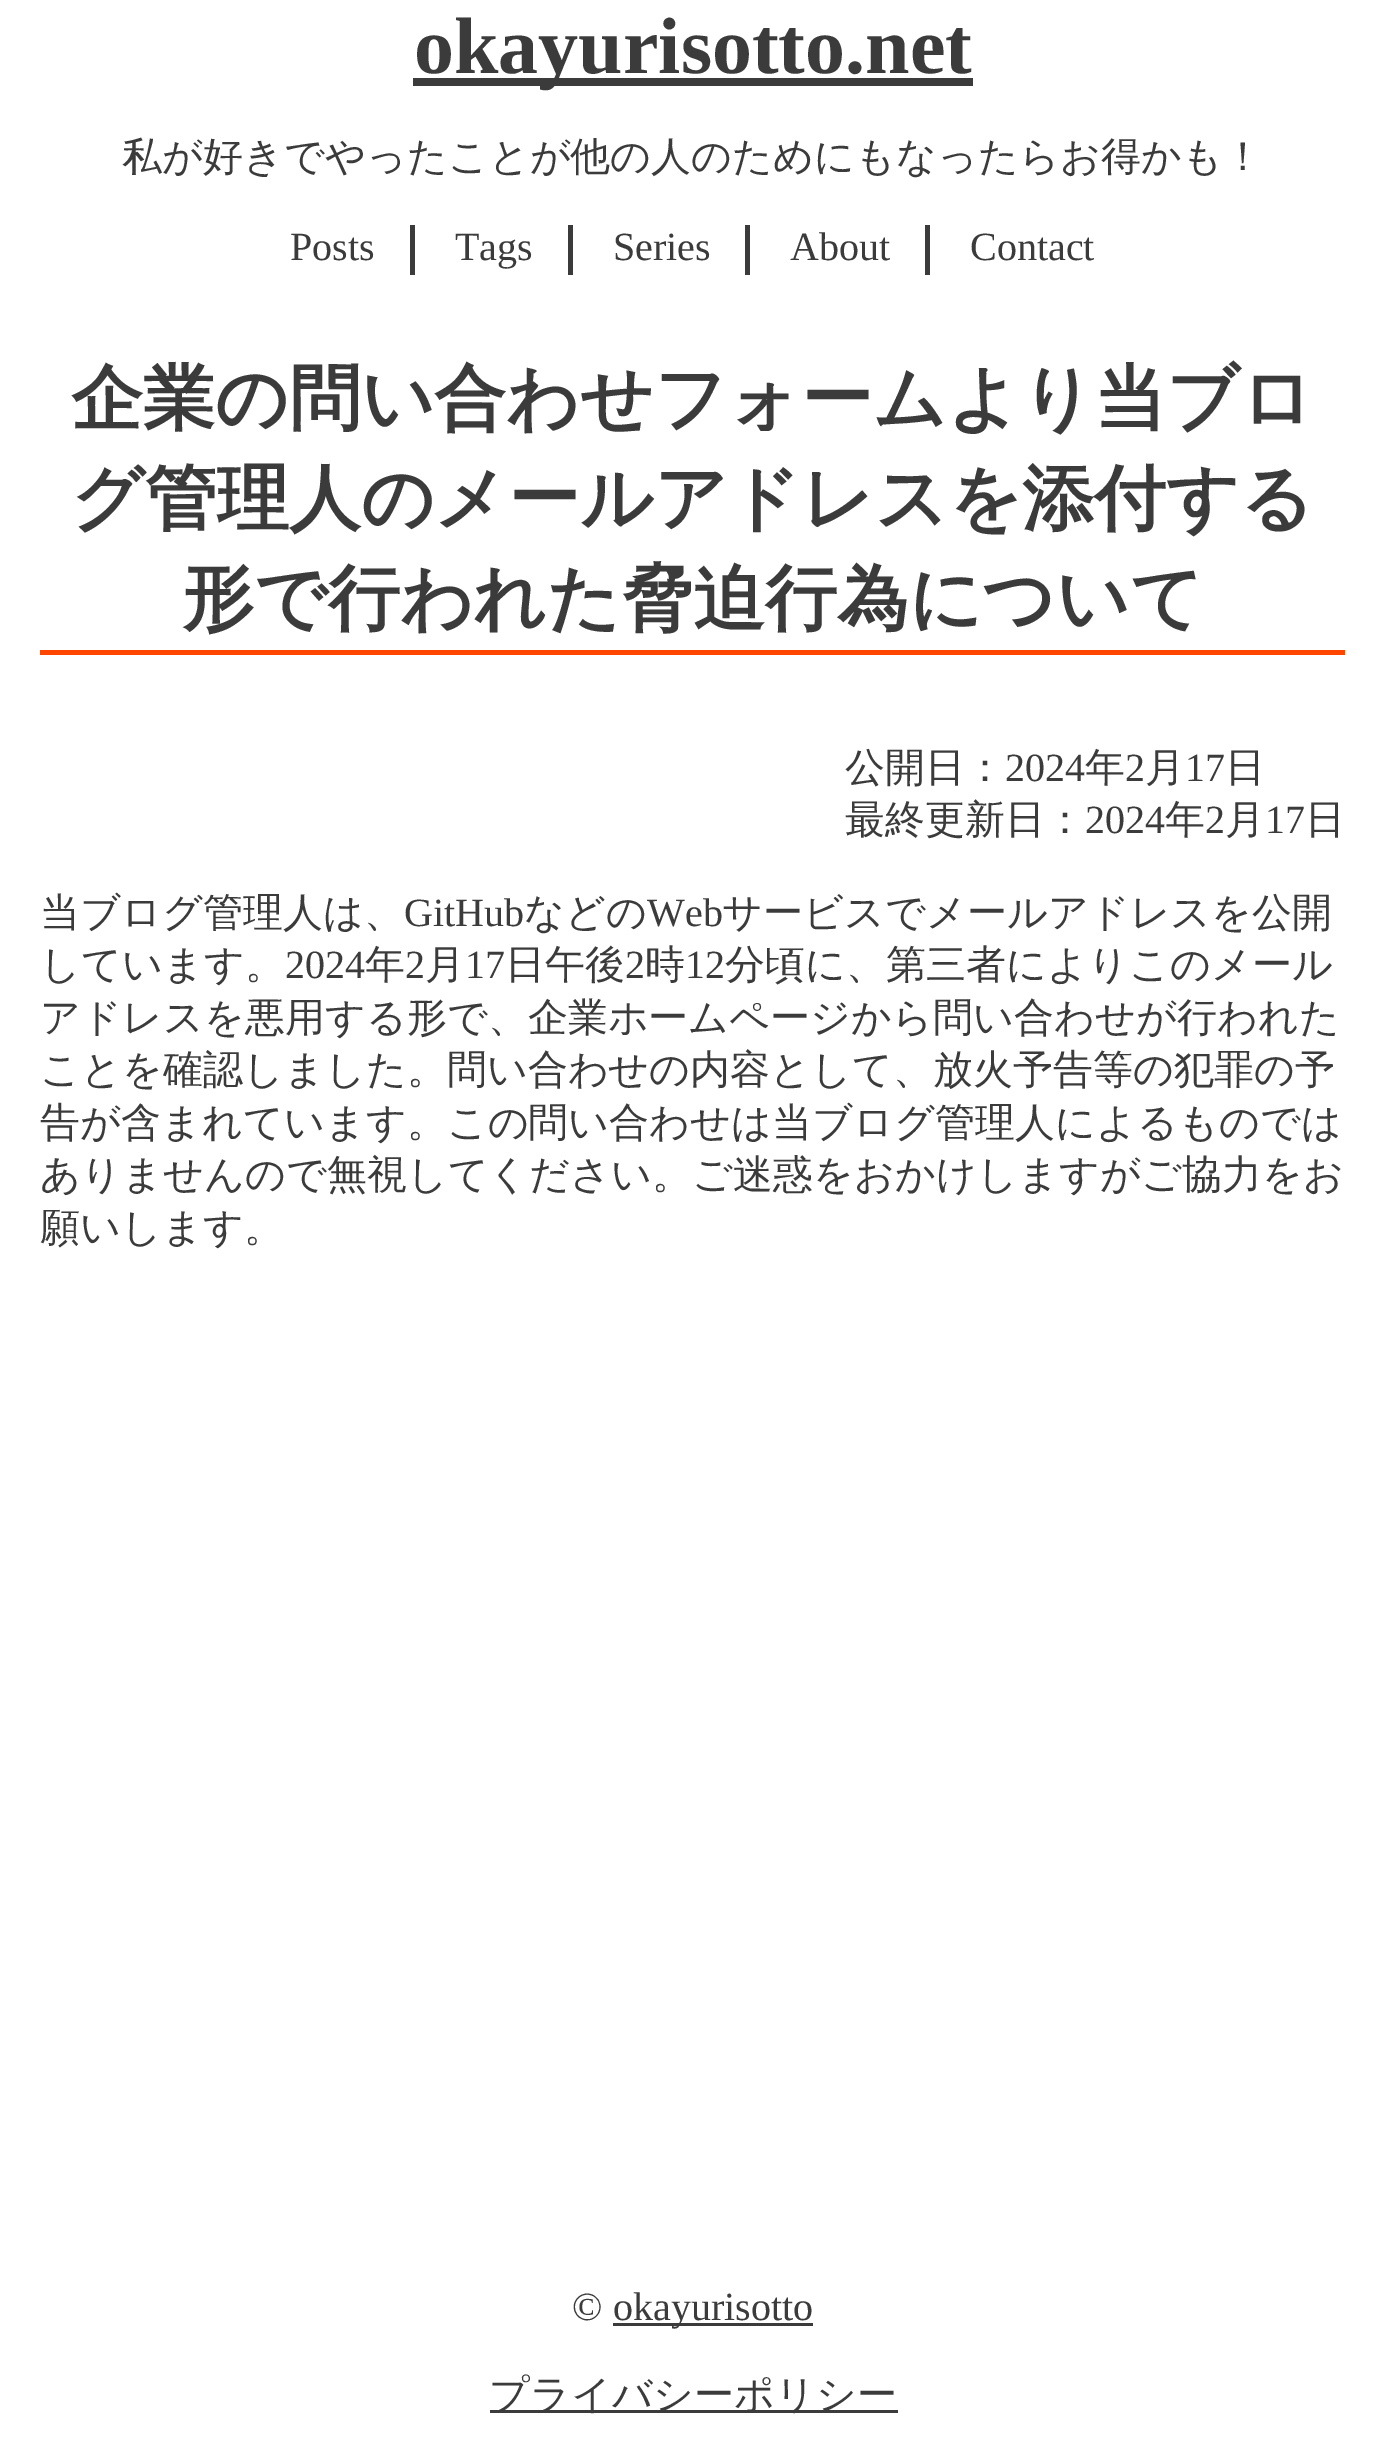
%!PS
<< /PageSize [1385 2461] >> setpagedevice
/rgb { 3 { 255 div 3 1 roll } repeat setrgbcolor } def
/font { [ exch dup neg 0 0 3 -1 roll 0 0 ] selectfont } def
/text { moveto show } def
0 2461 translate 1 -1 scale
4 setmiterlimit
255 255 255 rgb
0 0 1385 2461 rectfill
59 59 59 rgb
413 78 560 8 rectfill
410 225 5 50 rectfill
568 225 5 50 rectfill
745 225 5 50 rectfill
925 225 5 50 rectfill
255 69 0 rgb
40 650 1305 5 rectfill
59 59 59 rgb
613 2323 200 3 rectfill
490 2410 408 3 rectfill
/LiberationSerif-Bold 80 font
(okayurisotto.net) 414 73 text
/WenQuanYiZenHei-Medium 40 font
(私が好きでやったことが他の人のためにもなったらお得かも！) 122 170 text
/LiberationSerif-Regular 40 font
(Posts) 290 260 text
(Tags) 455 260 text
(Series) 613 260 text
(About) 790 260 text
(Contact) 970 260 text
/WenQuanYiZenHei-Bold 72 font
(企業の問い合わせフォームより当ブロ) 71 423 text
(グ管理人のメールアドレスを添付する) 71 523 text
(形で行われた脅迫行為について) 182 623 text
/WenQuanYiZenHei-Medium 40 font
(公開日：) 845 781 text
/LiberationSerif-Regular 40 font
(2024) 1005 781 text
/WenQuanYiZenHei-Medium 40 font
(年) 1085 781 text
/LiberationSerif-Regular 40 font
(2) 1125 781 text
/WenQuanYiZenHei-Medium 40 font
(月) 1145 781 text
/LiberationSerif-Regular 40 font
(17) 1185 781 text
/WenQuanYiZenHei-Medium 40 font
(日) 1225 781 text
(最終更新日：) 845 833 text
/LiberationSerif-Regular 40 font
(2024) 1085 833 text
/WenQuanYiZenHei-Medium 40 font
(年) 1165 833 text
/LiberationSerif-Regular 40 font
(2) 1205 833 text
/WenQuanYiZenHei-Medium 40 font
(月) 1225 833 text
/LiberationSerif-Regular 40 font
(17) 1265 833 text
/WenQuanYiZenHei-Medium 40 font
(日) 1305 833 text
(当ブログ管理人は、) 40 926 text
/LiberationSerif-Regular 40 font
(GitHub) 404 926 text
/WenQuanYiZenHei-Medium 40 font
(などの) 524 926 text
/LiberationSerif-Regular 40 font
(Web) 647 926 text
/WenQuanYiZenHei-Medium 40 font
(サービスでメールアドレスを公開) 722 926 text
(しています。) 40 978 text
/LiberationSerif-Regular 40 font
(2024) 285 978 text
/WenQuanYiZenHei-Medium 40 font
(年) 365 978 text
/LiberationSerif-Regular 40 font
(2) 405 978 text
/WenQuanYiZenHei-Medium 40 font
(月) 425 978 text
/LiberationSerif-Regular 40 font
(17) 465 978 text
/WenQuanYiZenHei-Medium 40 font
(日午後) 505 978 text
/LiberationSerif-Regular 40 font
(2) 625 978 text
/WenQuanYiZenHei-Medium 40 font
(時) 645 978 text
/LiberationSerif-Regular 40 font
(12) 685 978 text
/WenQuanYiZenHei-Medium 40 font
(分頃に、第三者によりこのメール) 725 978 text
(アドレスを悪用する形で、企業ホームページから問い合わせが行われた) 40 1031 text
(ことを確認しました。問い合わせの内容として、放火予告等の犯罪の予) 40 1083 text
(告が含まれています。この問い合わせは当ブログ管理人によるものでは) 40 1136 text
(ありませんので無視してください。ご迷惑をおかけしますがご協力をお) 40 1188 text
(願いします。) 40 1241 text
/LiberationSerif-Regular 40 font
(©) 572 2320 text
(okayurisotto) 613 2320 text
/WenQuanYiZenHei-Medium 40 font
(プライバシーポリシー) 489 2408 text
showpage
